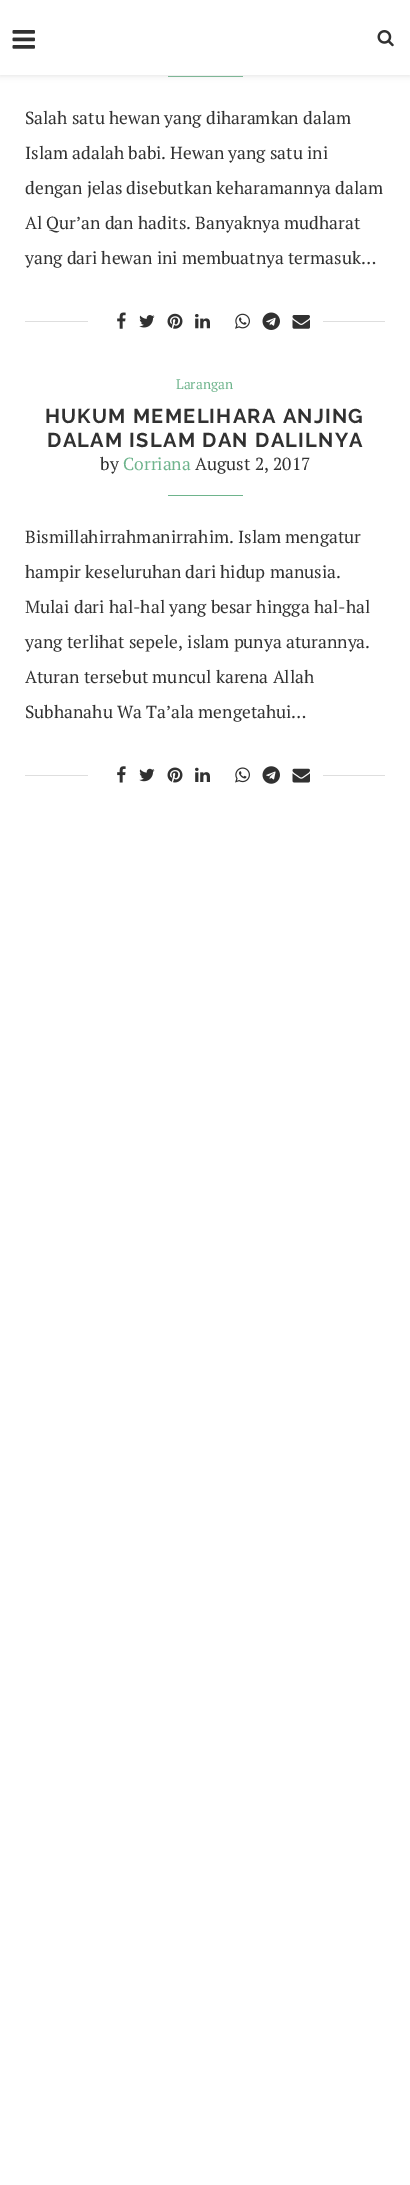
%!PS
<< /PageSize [410 2185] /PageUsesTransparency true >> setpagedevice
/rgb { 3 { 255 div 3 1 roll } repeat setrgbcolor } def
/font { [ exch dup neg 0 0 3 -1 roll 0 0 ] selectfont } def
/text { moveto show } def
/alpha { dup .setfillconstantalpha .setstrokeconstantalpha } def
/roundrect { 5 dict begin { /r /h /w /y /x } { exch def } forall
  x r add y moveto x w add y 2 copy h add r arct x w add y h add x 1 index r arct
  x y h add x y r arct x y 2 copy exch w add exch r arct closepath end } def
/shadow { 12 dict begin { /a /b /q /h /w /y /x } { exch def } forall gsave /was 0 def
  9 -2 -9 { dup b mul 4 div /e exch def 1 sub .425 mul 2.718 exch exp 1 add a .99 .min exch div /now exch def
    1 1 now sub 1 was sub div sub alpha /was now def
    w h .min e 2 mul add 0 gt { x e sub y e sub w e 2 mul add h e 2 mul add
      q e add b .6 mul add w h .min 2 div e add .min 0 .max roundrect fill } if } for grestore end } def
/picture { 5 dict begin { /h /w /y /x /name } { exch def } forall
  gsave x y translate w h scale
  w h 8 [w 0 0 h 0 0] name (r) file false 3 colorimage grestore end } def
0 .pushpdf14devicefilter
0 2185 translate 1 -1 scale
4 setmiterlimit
255 255 255 rgb
0 0 410 2185 rectfill
110 180 140 rgb
168 76 75 1 rectfill
190 190 190 rgb
0 1 410 75 0 3 0.46 shadow
255 255 255 rgb
0 0 410 75 rectfill
(img_01.rgb) 12 30 23 19 picture
(img_02.rgb) 377 30 17 17 picture
222 222 222 rgb
25 321 360 1 rectfill
255 255 255 rgb
88 321 235 1 rectfill
(img_03.rgb) 117 312 9 17 picture
(img_04.rgb) 139 315 16 13 picture
(img_05.rgb) 167 313 16 16 picture
(img_06.rgb) 195 314 15 15 picture
(img_07.rgb) 235 313 15 16 picture
(img_08.rgb) 262 312 18 18 picture
(img_09.rgb) 292 315 18 14 picture
110 180 140 rgb
168 495 75 1 rectfill
222 222 222 rgb
25 775 360 1 rectfill
255 255 255 rgb
88 775 235 1 rectfill
(img_10.rgb) 117 766 9 17 picture
(img_11.rgb) 139 768 16 14 picture
(img_12.rgb) 167 767 16 16 picture
(img_13.rgb) 195 767 15 15 picture
(img_14.rgb) 235 767 15 16 picture
(img_15.rgb) 262 766 18 18 picture
(img_16.rgb) 292 768 18 15 picture
/PTSerif-Regular 17.5 font
49 49 49 rgb
(Salah satu hewan yang diharamkan dalam) 25 124 text
(Islam adalah babi. Hewan yang satu ini) 25 159 text
(dengan jelas disebutkan keharamannya dalam) 25 194 text
(Al Qur’an dan hadits. Banyaknya mudharat) 25 229 text
(yang dari hewan ini membuatnya termasuk…) 25 264 text
/PTSerif-Regular 13.75 font
110 180 140 rgb
(Larangan) 176 389 text
/Raleway-Bold 20 font
49 49 49 rgb
45 423 moveto 1.25 0 (HUKUM MEMELIHARA ANJING) ashow
47 447 moveto 1.25 0 (DALAM ISLAM DAN DALILNYA) ashow
/PTSerif-Regular 17.5 font
(by) 100 470 text
110 180 140 rgb
(Corriana) 123 470 text
49 49 49 rgb
(August 2, 2017) 195 470 text
(Bismillahirrahmanirrahim. Islam mengatur) 25 543 text
(hampir keseluruhan dari hidup manusia.) 25 578 text
(Mulai dari hal-hal yang besar hingga hal-hal) 25 613 text
(yang terlihat sepele, islam punya aturannya.) 25 648 text
(Aturan tersebut muncul karena Allah) 25 683 text
(Subhanahu Wa Ta’ala mengetahui…) 25 718 text
.poppdf14devicefilter showpage
